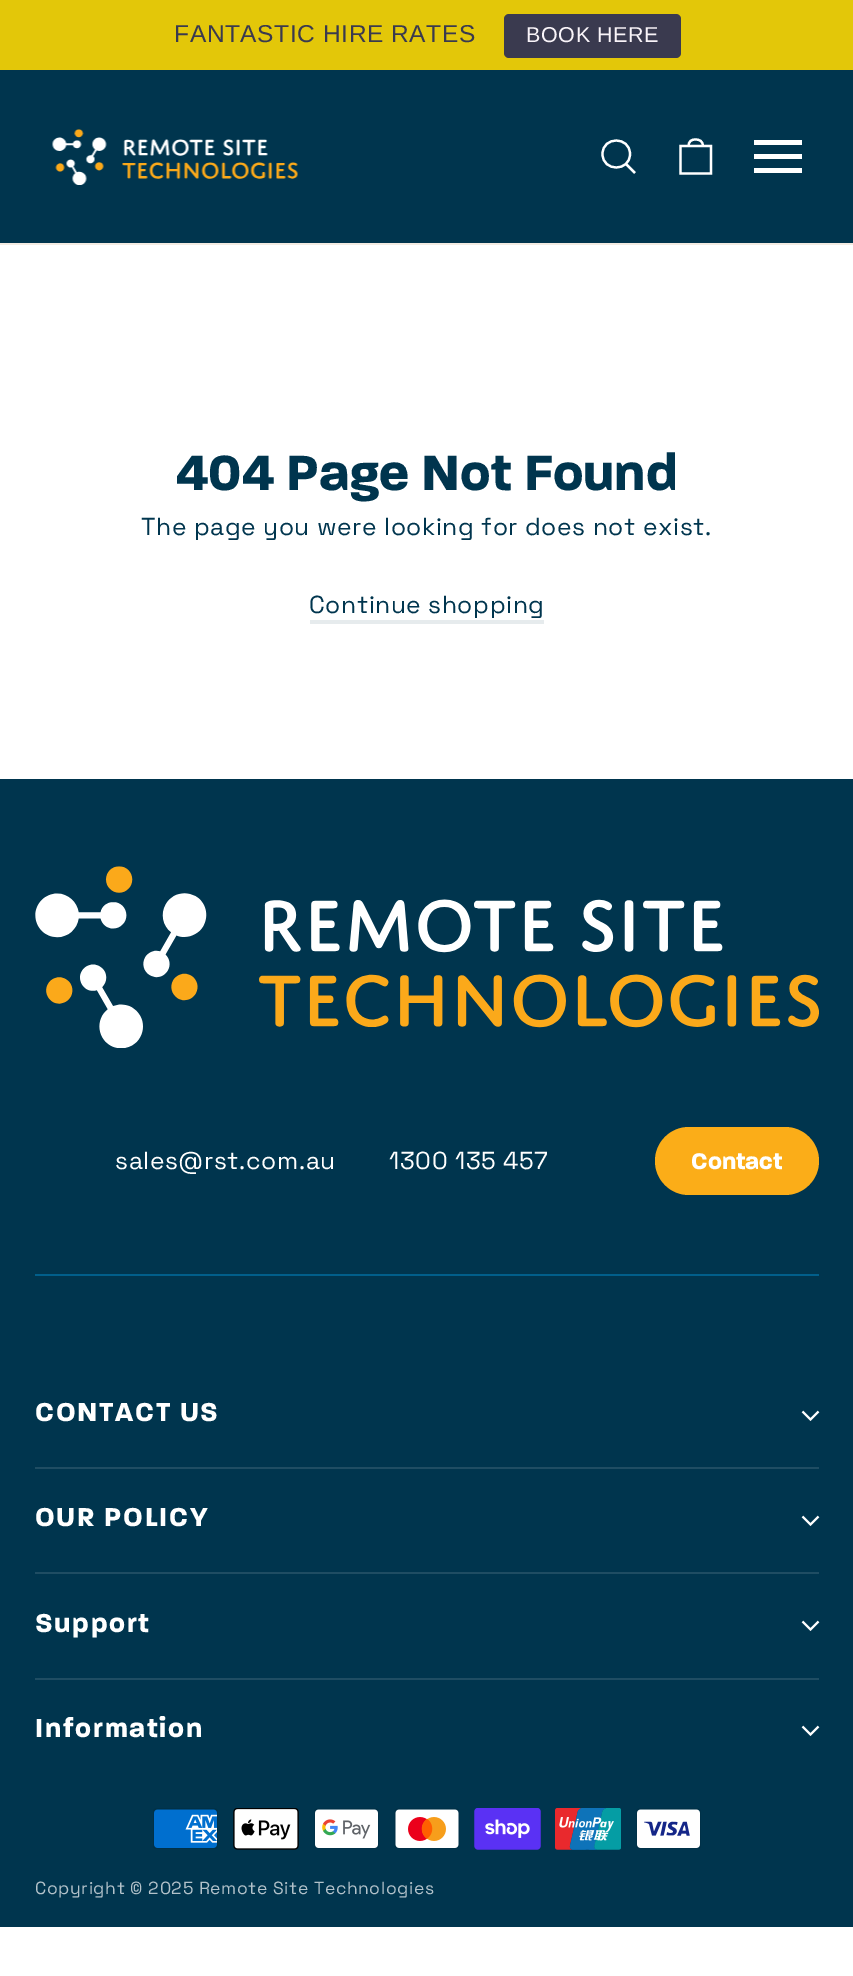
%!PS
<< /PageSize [853 1976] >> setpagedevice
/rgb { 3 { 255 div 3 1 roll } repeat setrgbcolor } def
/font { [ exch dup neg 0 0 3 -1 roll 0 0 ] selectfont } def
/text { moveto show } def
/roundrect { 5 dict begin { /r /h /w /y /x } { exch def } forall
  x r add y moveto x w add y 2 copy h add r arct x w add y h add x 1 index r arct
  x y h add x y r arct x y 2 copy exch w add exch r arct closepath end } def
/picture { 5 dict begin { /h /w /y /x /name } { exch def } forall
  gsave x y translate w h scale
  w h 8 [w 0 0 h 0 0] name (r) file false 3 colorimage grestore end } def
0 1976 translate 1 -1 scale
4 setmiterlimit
255 255 255 rgb
0 0 853 1976 rectfill
227 199 9 rgb
0 0 853 70 rectfill
58 58 79 rgb
504 14 177 44 5 roundrect fill
0 53 78 rgb
0 70 853 173 rectfill
243 235 226 rgb
0 243 853 2 rectfill
(img_01.rgb) 52 129 246 56 picture
255 255 255 rgb
2.2 setlinewidth
630 154 moveto 0 18 -27.5 18 -27.5 0 rcurveto 0 -18 27.5 -18 27.5 0 rcurveto closepath 635 173 moveto -9 -9 rlineto stroke
680.5 146 moveto 30.5 0 rlineto 0 27.5 rlineto -30.5 0 rlineto closepath 688.5 146.5 moveto 0 -5.5 3 -7 7 -7 rcurveto 4 0 7.5 1.5 7.5 7 rcurveto stroke
754 168 moveto 48 0 rlineto 0 5 rlineto -48 0 rlineto closepath 754 140 moveto 48 0 rlineto 0 5 rlineto -48 0 rlineto closepath 754 154 moveto 48 0 rlineto 0 5 rlineto -48 0 rlineto closepath eofill
230 235 237 rgb
310 620 234 4 rectfill
0 53 78 rgb
0 779 853 1148 rectfill
1 95 139 rgb
35 1274 784 2 rectfill
(img_02.rgb) 35 866 784 182 picture
251 173 24 rgb
655 1127 164 68 34 roundrect fill
255 255 255 rgb
1.9 setlinewidth
802.5 1411.5 moveto 8 8 rlineto 8 -8 rlineto stroke
31 77 99 rgb
35 1467 784 2 rectfill
255 255 255 rgb
802.5 1516.5 moveto 8 8 rlineto 8 -8 rlineto stroke
31 77 99 rgb
35 1572 784 2 rectfill
255 255 255 rgb
802.5 1621.5 moveto 8 8 rlineto 8 -8 rlineto stroke
31 77 99 rgb
35 1678 784 2 rectfill
255 255 255 rgb
802.5 1726.5 moveto 8 8 rlineto 8 -8 rlineto stroke
(img_03.rgb) 153 1808 65 41 picture
(img_04.rgb) 233 1808 66 42 picture
(img_05.rgb) 314 1808 65 41 picture
(img_06.rgb) 394 1808 66 41 picture
(img_07.rgb) 474 1808 67 42 picture
(img_08.rgb) 555 1808 66 42 picture
(img_09.rgb) 636 1808 65 41 picture
/LiberationSans-Regular 24.5 font
58 58 79 rgb
174 42 moveto 0.6 0 (FANTASTIC HIRE RATES) ashow
/LiberationSans-Regular 21.5 font
249 244 249 rgb
526 42 moveto 0.6 0 (BOOK HERE) ashow
/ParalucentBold-Bold 53.5 font
0 53 78 rgb
(404 Page Not Found) 176 490 text
/SpaceGrotesk-Regular 24.5 font
141 535 moveto 0.6 0 (The page you were looking for does not exist.) ashow
309 613 moveto 0.6 0 (Continue shopping) ashow
255 255 255 rgb
115 1169 moveto 0.6 0 (sales@rst.com.au) ashow
389 1169 moveto 0.6 0 (1300 135 457) ashow
/ParalucentBold-Bold 24.5 font
(Contact) 691 1169 text
/ParalucentBold-Bold 28 font
35 1421 moveto 1.75 0 (CONTACT US) ashow
35 1526 moveto 1.75 0 (OUR POLICY) ashow
35 1632 moveto 1.75 0 (Support) ashow
35 1737 moveto 1.75 0 (Information) ashow
/SpaceGrotesk-Regular 17.5 font
179 194 202 rgb
35 1894 moveto 0.6 0 (Copyright © 2025 Remote Site Technologies) ashow
showpage
